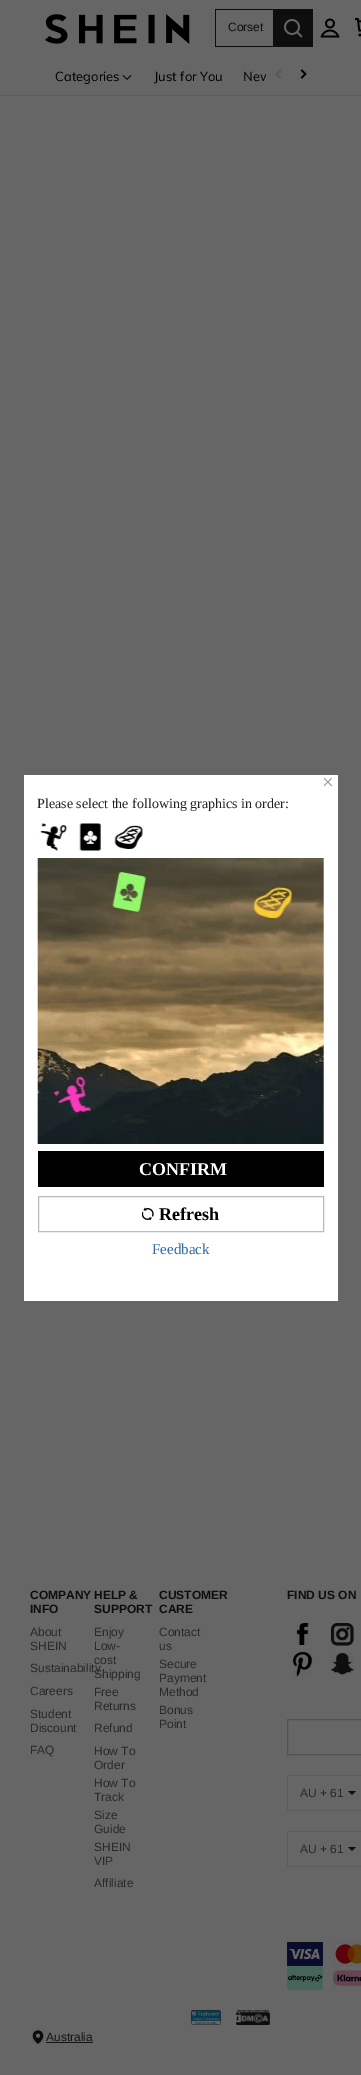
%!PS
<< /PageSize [361 2075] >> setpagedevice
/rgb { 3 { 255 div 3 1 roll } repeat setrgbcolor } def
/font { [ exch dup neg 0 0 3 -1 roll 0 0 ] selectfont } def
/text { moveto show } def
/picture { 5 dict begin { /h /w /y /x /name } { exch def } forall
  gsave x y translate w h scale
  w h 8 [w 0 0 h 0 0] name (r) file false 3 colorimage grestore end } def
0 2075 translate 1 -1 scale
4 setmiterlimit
102 102 102 rgb
0 0 361 2075 rectfill
(img_01.rgb) 45 14 145 30 picture
14 14 14 rgb
215 9 58 1 rectfill
215 46 58 1 rectfill
215 9 1 38 rectfill
273 9 40 38 rectfill
(img_02.rgb) 284 19 19 19 picture
(img_03.rgb) 320 18 20 20 picture
(img_04.rgb) 355 18 6 19 picture
92 92 92 rgb
0 95 361 1 rectfill
(img_05.rgb) 122 75 10 5 picture
(img_06.rgb) 275 69 7 10 picture
(img_07.rgb) 300 69 7 10 picture
(img_08.rgb) 297 1623 12 22 picture
(img_09.rgb) 331 1623 23 23 picture
(img_10.rgb) 293 1651 20 26 picture
(img_11.rgb) 331 1653 23 22 picture
82 82 82 rgb
287.5 1719.5 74 35 rectstroke
92 92 92 rgb
287 1775 74 1 rectfill
287 1810 74 1 rectfill
287 1775 1 36 rectfill
14 14 14 rgb
348 1791 moveto 8 0 rlineto -4 4 rlineto closepath fill
92 92 92 rgb
287 1831 74 1 rectfill
287 1866 74 1 rectfill
287 1831 1 36 rectfill
14 14 14 rgb
348 1847 moveto 8 0 rlineto -4 4 rlineto closepath fill
(img_12.rgb) 287 1942 36 24 picture
(img_13.rgb) 333 1942 28 24 picture
(img_14.rgb) 287 1966 36 24 picture
(img_15.rgb) 333 1970 28 16 picture
(img_16.rgb) 191 2010 30 15 picture
(img_17.rgb) 236 2010 34 15 picture
(img_18.rgb) 32 2030 12 14 picture
20 20 20 rgb
46 2042 47 1 rectfill
255 255 255 rgb
24 775 314 526 rectfill
(img_19.rgb) 39 823 106 28 picture
(img_20.rgb) 37 858 287 286 picture
0 0 0 rgb
38 1151 286 36 rectfill
187 187 187 rgb
38.5 1196.5 285 35 rectstroke
(img_21.rgb) 142 1207 12 14 picture
/LiberationSans-Regular 12 font
14 14 14 rgb
(Corset) 228 31 text
/Muli-Regular 13 font
0 0 0 rgb
(Categories) 55 81 text
(Just for You) 154 81 text
(New) 243 81 text
102 102 102 rgb
266 74 5 7 rectfill
/LiberationSans-Bold 12 font
14 14 14 rgb
(COMPANY) 30 1599 text
(INFO) 30 1613 text
/LiberationSans-Regular 12 font
41 41 41 rgb
(About) 30 1636 text
(SHEIN) 30 1650 text
(Sustainability) 30 1672 text
(Careers) 30 1695 text
(Student) 30 1718 text
(Discount) 30 1732 text
(FAQ) 30 1754 text
/LiberationSans-Bold 12 font
14 14 14 rgb
(HELP &) 94 1599 text
(SUPPORT) 94 1613 text
/LiberationSans-Regular 12 font
41 41 41 rgb
(Enjoy) 94 1636 text
(Low-) 94 1650 text
(cost) 94 1664 text
(Shipping) 94 1678 text
(Free) 94 1696 text
(Returns) 94 1710 text
(Refund) 94 1732 text
(How To) 94 1755 text
(Order) 94 1769 text
(How To) 94 1787 text
(Track) 94 1801 text
(Size) 94 1819 text
(Guide) 94 1833 text
(SHEIN) 94 1851 text
(VIP) 94 1865 text
(Affiliate) 94 1887 text
/LiberationSans-Bold 12 font
14 14 14 rgb
(CUSTOMER) 159 1599 text
(CARE) 159 1613 text
/LiberationSans-Regular 12 font
41 41 41 rgb
(Contact) 159 1636 text
(us) 159 1650 text
(Secure) 159 1668 text
(Payment) 159 1682 text
(Method) 159 1696 text
(Bonus) 159 1714 text
(Point) 159 1728 text
/LiberationSans-Bold 12 font
14 14 14 rgb
(FIND US ON) 287 1599 text
/LiberationSans-Regular 12 font
41 41 41 rgb
(AU + 61) 300 1797 text
(AU + 61) 300 1853 text
20 20 20 rgb
(Australia) 46 2041 text
/LiberationSerif-Regular 21 font
149 149 149 rgb
(×) 322 789 text
/LiberationSerif-Regular 14 font
34 34 34 rgb
(Please select the following graphics in order:) 37 808 text
/LiberationSerif-Bold 18 font
255 255 255 rgb
(CONFIRM) 139 1175 text
0 0 0 rgb
(Refresh) 159 1220 text
/LiberationSerif-Regular 15 font
45 104 168 rgb
(Feedback) 152 1254 text
showpage
